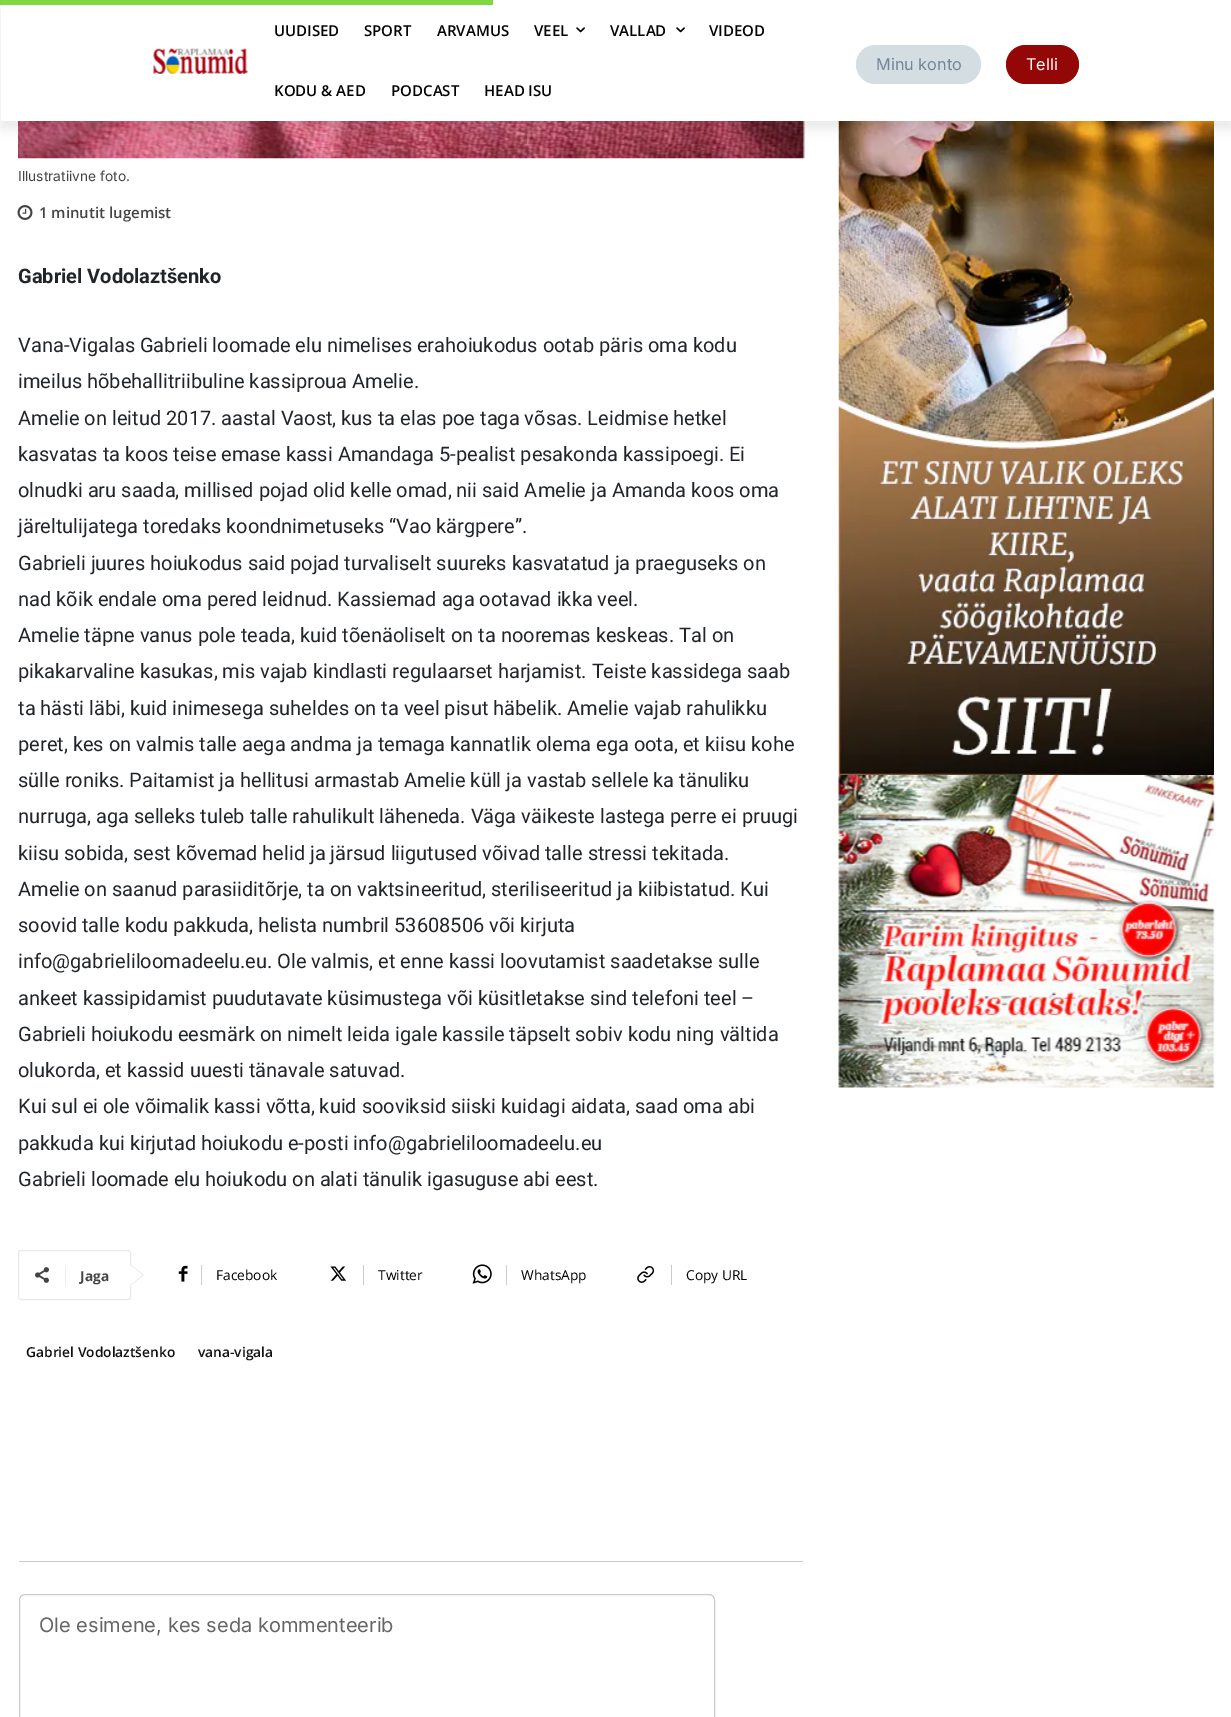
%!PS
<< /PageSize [1231 1717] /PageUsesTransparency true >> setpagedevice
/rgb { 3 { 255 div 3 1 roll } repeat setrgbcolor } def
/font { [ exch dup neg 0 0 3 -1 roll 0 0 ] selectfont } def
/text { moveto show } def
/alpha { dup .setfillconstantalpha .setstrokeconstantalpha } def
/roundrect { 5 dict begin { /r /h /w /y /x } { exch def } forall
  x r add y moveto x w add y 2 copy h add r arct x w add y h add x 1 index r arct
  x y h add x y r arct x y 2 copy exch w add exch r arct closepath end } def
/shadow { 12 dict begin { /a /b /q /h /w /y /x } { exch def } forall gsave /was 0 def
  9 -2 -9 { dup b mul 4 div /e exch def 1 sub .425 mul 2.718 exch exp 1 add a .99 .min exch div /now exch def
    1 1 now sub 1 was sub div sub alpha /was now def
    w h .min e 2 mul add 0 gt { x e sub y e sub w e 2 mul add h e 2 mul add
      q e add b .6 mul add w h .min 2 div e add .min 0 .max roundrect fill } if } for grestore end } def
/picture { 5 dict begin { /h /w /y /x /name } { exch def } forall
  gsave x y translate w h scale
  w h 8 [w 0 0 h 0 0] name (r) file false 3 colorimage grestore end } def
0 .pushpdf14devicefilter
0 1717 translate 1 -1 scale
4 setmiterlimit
255 255 255 rgb
0 0 1231 1717 rectfill
(img_01.rgb) 153 48 95 26 picture
211 221 226 rgb
856 45 125 39 19.5 roundrect fill
147 7 7 rgb
1006 45 73 39 19.5 roundrect fill
(img_03.rgb) 18 121 787 38 picture
(img_10.rgb) 838 121 376 654 picture
gsave
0 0 moveto 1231 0 rlineto 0 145 rlineto -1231 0 rlineto closepath 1 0 moveto 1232 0 rlineto 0 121 rlineto -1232 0 rlineto closepath eoclip newpath
0 0 0 rgb
1 8 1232 121 0 5 0.08 shadow
grestore
129 215 66 rgb
0 0 493 5 rectfill
(img_02.rgb) 576 27 9 6 picture
(img_02.rgb) 676 27 9 6 picture
(img_04.rgb) 17 205 16 15 picture
233 233 233 rgb
18.5 1250.5 112 49 2 roundrect stroke
130 1286 moveto 0 -22 rlineto 14 11 rlineto closepath fill
(img_05.rgb) 35 1267 14 16 picture
235 235 235 rgb
65 1266 1 20 rectfill
255 255 255 rgb
130 1285 moveto 0 -20 rlineto 12.5 10 rlineto closepath fill
(img_06.rgb) 178 1265 10 17 picture
204 204 204 rgb
201 1265 1 20 rectfill
(img_07.rgb) 330 1266 16 15 picture
363 1265 1 20 rectfill
(img_08.rgb) 472 1264 20 20 picture
506 1265 1 20 rectfill
(img_09.rgb) 637 1266 18 17 picture
671 1265 1 20 rectfill
19 1561 784 1 rectfill
19.5 1594.5 695 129 5.5 roundrect stroke
(img_11.rgb) 838 775 377 313 picture
/OpenSans-SemiBold 15 font
0 0 0 rgb
(UUDISED) 274 36 text
(SPORT) 364 36 text
(ARVAMUS) 437 36 text
(VEEL) 534 36 text
(VALLAD) 610 36 text
(VIDEOD) 709 36 text
(KODU & AED) 274 96 text
(PODCAST) 391 96 text
(HEAD ISU) 484 96 text
/Inter-Regular 16.25 font
112 133 151 rgb
(Minu konto) 876 70 text
250 250 251 rgb
(Telli) 1026 70 text
/Inter-Regular 13.75 font
68 68 68 rgb
(Illustratiivne foto.) 18 181 text
/OpenSans-SemiBold 15 font
(1 minutit lugemist) 39 218 text
/Roboto-Bold 20 font
33 37 41 rgb
(Gabriel Vodolaztšenko) 18 283 text
/Roboto-Regular 20 font
(Vana-Vigalas Gabrieli loomade elu nimelises erahoiukodus ootab päris oma kodu) 18 352 text
(imeilus hõbehallitriibuline kassiproua Amelie.) 18 388 text
(Amelie on leitud 2017. aastal Vaost, kus ta elas poe taga võsas. Leidmise hetkel) 18 425 text
(kasvatas ta koos teise emase kassi Amandaga 5-pealist pesakonda kassipoegi. Ei) 18 461 text
(olnudki aru saada, millised pojad olid kelle omad, nii said Amelie ja Amanda koos oma) 18 497 text
(järeltulijatega toredaks koondnimetuseks “Vao kärgpere”.) 18 533 text
(Gabrieli juures hoiukodus said pojad turvaliselt suureks kasvatatud ja praeguseks on) 18 570 text
(nad kõik endale oma pered leidnud. Kassiemad aga ootavad ikka veel.) 18 606 text
(Amelie täpne vanus pole teada, kuid tõenäoliselt on ta nooremas keskeas. Tal on) 18 642 text
(pikakarvaline kasukas, mis vajab kindlasti regulaarset harjamist. Teiste kassidega saab) 18 678 text
(ta hästi läbi, kuid inimesega suheldes on ta veel pisut häbelik. Amelie vajab rahulikku) 18 715 text
(peret, kes on valmis talle aega andma ja temaga kannatlik olema ega oota, et kiisu kohe) 18 751 text
(sülle roniks. Paitamist ja hellitusi armastab Amelie küll ja vastab sellele ka tänuliku) 18 787 text
(nurruga, aga selleks tuleb talle rahulikult läheneda. Väga väikeste lastega perre ei pruugi) 18 823 text
(kiisu sobida, sest kõvemad helid ja järsud liigutused võivad talle stressi tekitada.) 18 860 text
(Amelie on saanud parasiiditõrje, ta on vaktsineeritud, steriliseeritud ja kiibistatud. Kui) 18 896 text
(soovid talle kodu pakkuda, helista numbril 53608506 või kirjuta) 18 932 text
(info@gabrieliloomadeelu.eu. Ole valmis, et enne kassi loovutamist saadetakse sulle) 18 968 text
(ankeet kassipidamist puudutavate küsimustega või küsitletakse sind telefoni teel –) 18 1005 text
(Gabrieli hoiukodu eesmärk on nimelt leida igale kassile täpselt sobiv kodu ning vältida) 18 1041 text
(olukorda, et kassid uuesti tänavale satuvad.) 18 1077 text
(Kui sul ei ole võimalik kassi võtta, kuid sooviksid siiski kuidagi aidata, saad oma abi) 18 1113 text
(pakkuda kui kirjutad hoiukodu e-posti info@gabrieliloomadeelu.eu) 18 1150 text
(Gabrieli loomade elu hoiukodu on alati tänulik igasuguse abi eest.) 18 1186 text
/OpenSans-Bold 13.75 font
68 68 68 rgb
(Jaga) 80 1281 text
/OpenSans-Regular 13.75 font
0 0 0 rgb
(Facebook) 216 1280 text
(Twitter) 378 1280 text
(WhatsApp) 521 1280 text
(Copy URL) 686 1280 text
/OpenSans-SemiBold 13.75 font
17 17 17 rgb
(Gabriel Vodolaztšenko) 26 1357 text
(vana-vigala) 198 1357 text
/Inter-Regular 20 font
102 102 102 rgb
(Ole esimene, kes seda kommenteerib) 39 1632 text
.poppdf14devicefilter showpage
